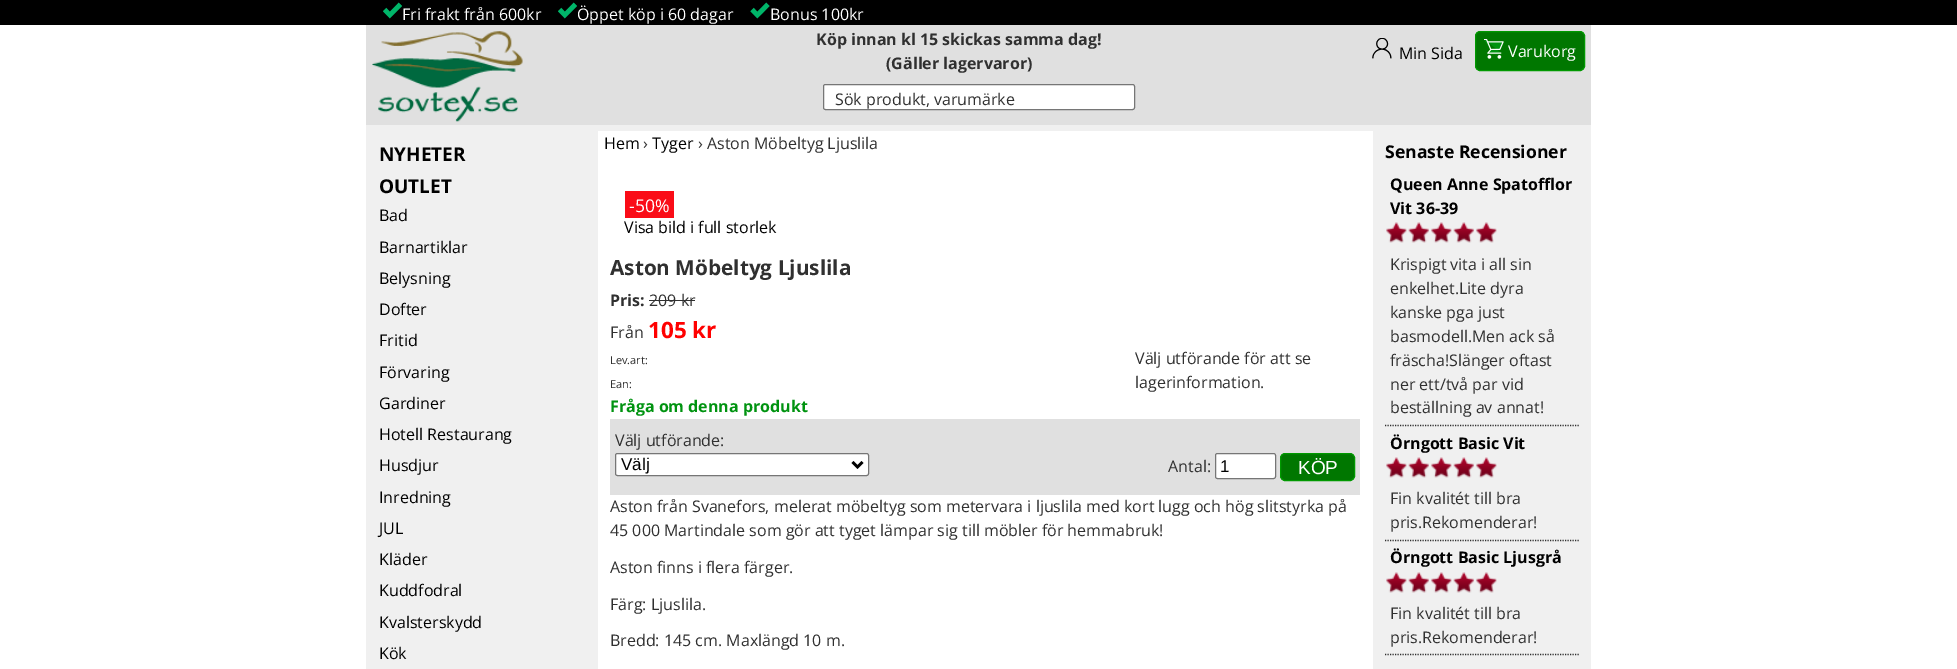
%!PS
<< /PageSize [1957 669] >> setpagedevice
/rgb { 3 { 255 div 3 1 roll } repeat setrgbcolor } def
/font { [ exch dup neg 0 0 3 -1 roll 0 0 ] selectfont } def
/text { moveto show } def
/roundrect { 5 dict begin { /r /h /w /y /x } { exch def } forall
  x r add y moveto x w add y 2 copy h add r arct x w add y h add x 1 index r arct
  x y h add x y r arct x y 2 copy exch w add exch r arct closepath end } def
/picture { 5 dict begin { /h /w /y /x /name } { exch def } forall
  gsave x y translate w h scale
  w h 8 [w 0 0 h 0 0] name (r) file false 3 colorimage grestore end } def
0 669 translate 1 -1 scale
4 setmiterlimit
255 255 255 rgb
0 0 1957 669 rectfill
0 0 0 rgb
0 0 1957 25 rectfill
(img_01.rgb) 383 2 19 17 picture
(img_01.rgb) 558 2 19 17 picture
(img_02.rgb) 750 2 20 17 picture
224 224 224 rgb
366 25 1225 100 rectfill
(img_03.rgb) 372 31 151 91 picture
(img_04.rgb) 1372 38 20 21 picture
0 119 0 rgb
1475.5 31.5 109 39 4.5 roundrect gsave fill grestore
0 153 0 rgb
stroke
(img_05.rgb) 1484 39 20 20 picture
255 255 255 rgb
823.5 84.5 311 25 2 roundrect gsave fill grestore
118 118 118 rgb
stroke
240 240 240 rgb
366 125 232 544 rectfill
598 125 775 6 rectfill
250 12 23 rgb
625 191 49 27 rectfill
48 48 48 rgb
649 300 46 1 rectfill
224 224 224 rgb
610 419 750 76 rectfill
255 255 255 rgb
615.5 453.5 253 22 2 roundrect gsave fill grestore
118 118 118 rgb
stroke
0 0 0 rgb
2.5 setlinewidth
852.5 462 moveto 5 5 rlineto 5 -5 rlineto stroke
255 255 255 rgb
1215.5 453.5 60 25 2 roundrect gsave fill grestore
118 118 118 rgb
1 setlinewidth
stroke
0 119 0 rgb
1280.5 453.5 74 27 4.5 roundrect gsave fill grestore
0 153 0 rgb
stroke
240 240 240 rgb
1373 125 218 544 rectfill
48 48 48 rgb
1.2 setlinewidth
[1.25 1.25] 0 setdash
1385 425.5 moveto 194 0 rlineto stroke
(img_06.rgb) 1386 222 111 21 picture
1385 540.5 moveto 194 0 rlineto stroke
(img_06.rgb) 1386 457 111 21 picture
1385 654.5 moveto 194 0 rlineto stroke
(img_07.rgb) 1386 572 111 21 picture
/OpenSans-Regular 16 font
255 255 255 rgb
(Fri frakt från 600kr) 402 20 text
(Öppet köp i 60 dagar) 577 20 text
(Bonus 100kr) 770 20 text
/OpenSans-Bold 16 font
48 48 48 rgb
(Köp innan kl 15 skickas samma dag!) 816 45 text
(\(Gäller lagervaror\)) 886 69 text
/OpenSans-Regular 16 font
0 0 0 rgb
(Min Sida) 1399 59 text
255 255 255 rgb
(Varukorg) 1508 57 text
48 48 48 rgb
(Sök produkt, varumärke) 835 105 text
/OpenSans-Bold 19 font
0 0 0 rgb
(NYHETER) 379 161 text
(OUTLET) 379 193 text
/OpenSans-Regular 16 font
(Bad) 379 221 text
(Barnartiklar) 379 253 text
(Belysning) 379 284 text
(Dofter) 379 315 text
(Fritid) 379 346 text
(Förvaring) 379 378 text
(Gardiner) 379 409 text
(Hotell Restaurang) 379 440 text
(Husdjur) 379 471 text
(Inredning) 379 503 text
(JUL) 379 534 text
(Kläder) 379 565 text
(Kuddfodral) 379 596 text
(Kvalsterskydd) 379 628 text
(Kök) 379 659 text
(Hem) 604 149 text
48 48 48 rgb
(›) 643 149 text
0 0 0 rgb
(Tyger) 652 149 text
48 48 48 rgb
(› Aston Möbeltyg Ljuslila) 698 149 text
/OpenSans-Regular 17.6 font
255 255 255 rgb
(-50%) 629 212 text
/OpenSans-Regular 16 font
0 0 0 rgb
(Visa bild i full storlek) 624 233 text
/OpenSans-Bold 20.75 font
48 48 48 rgb
(Aston Möbeltyg Ljuslila) 610 275 text
/OpenSans-Bold 16 font
(Pris:) 610 306 text
/OpenSans-Regular 16 font
(209 kr) 649 306 text
(Från) 610 338 text
/OpenSans-Bold 22.5 font
255 0 0 rgb
(105 kr) 648 338 text
/OpenSans-Regular 11 font
48 48 48 rgb
(Lev.art:) 610 364 text
(Ean:) 610 388 text
/OpenSans-Regular 16 font
(Välj utförande för att se) 1135 364 text
(lagerinformation.) 1135 388 text
/OpenSans-Bold 16 font
0 147 16 rgb
(Fråga om denna produkt) 610 412 text
/OpenSans-Regular 16 font
48 48 48 rgb
(Välj utförande:) 615 446 text
/LiberationSans-Regular 17 font
0 0 0 rgb
(Välj) 621 470 text
/OpenSans-Regular 16 font
48 48 48 rgb
(Antal:) 1168 472 text
/LiberationSans-Regular 17 font
0 0 0 rgb
(1) 1220 472 text
/LiberationSans-Regular 19 font
255 255 255 rgb
(KÖP) 1298 474 text
/OpenSans-Regular 16 font
48 48 48 rgb
(Aston från Svanefors, melerat möbeltyg som metervara i ljuslila med kort lugg och hög slitstyrka på) 610 512 text
(45 000 Martindale som gör att tyget lämpar sig till möbler för hemmabruk!) 610 536 text
(Aston finns i flera färger.) 610 573 text
(Färg: Ljuslila.) 610 610 text
(Bredd: 145 cm. Maxlängd 10 m.) 610 646 text
/OpenSans-Bold 17.6 font
0 0 0 rgb
(Senaste Recensioner) 1385 158 text
/OpenSans-Bold 16 font
(Queen Anne Spatofflor) 1390 190 text
(Vit 36-39) 1390 214 text
/OpenSans-Regular 16 font
48 48 48 rgb
(Krispigt vita i all sin) 1390 270 text
(enkelhet.Lite dyra) 1390 294 text
(kanske pga just) 1390 318 text
(basmodell.Men ack så) 1390 342 text
(fräscha!Slänger oftast) 1390 366 text
(ner ett/två par vid) 1390 390 text
(beställning av annat!) 1390 413 text
/OpenSans-Bold 16 font
0 0 0 rgb
(Örngott Basic Vit) 1390 449 text
/OpenSans-Regular 16 font
48 48 48 rgb
(Fin kvalitét till bra) 1390 504 text
(pris.Rekomenderar!) 1390 528 text
/OpenSans-Bold 16 font
0 0 0 rgb
(Örngott Basic Ljusgrå) 1390 563 text
/OpenSans-Regular 16 font
48 48 48 rgb
(Fin kvalitét till bra) 1390 619 text
(pris.Rekomenderar!) 1390 643 text
showpage
